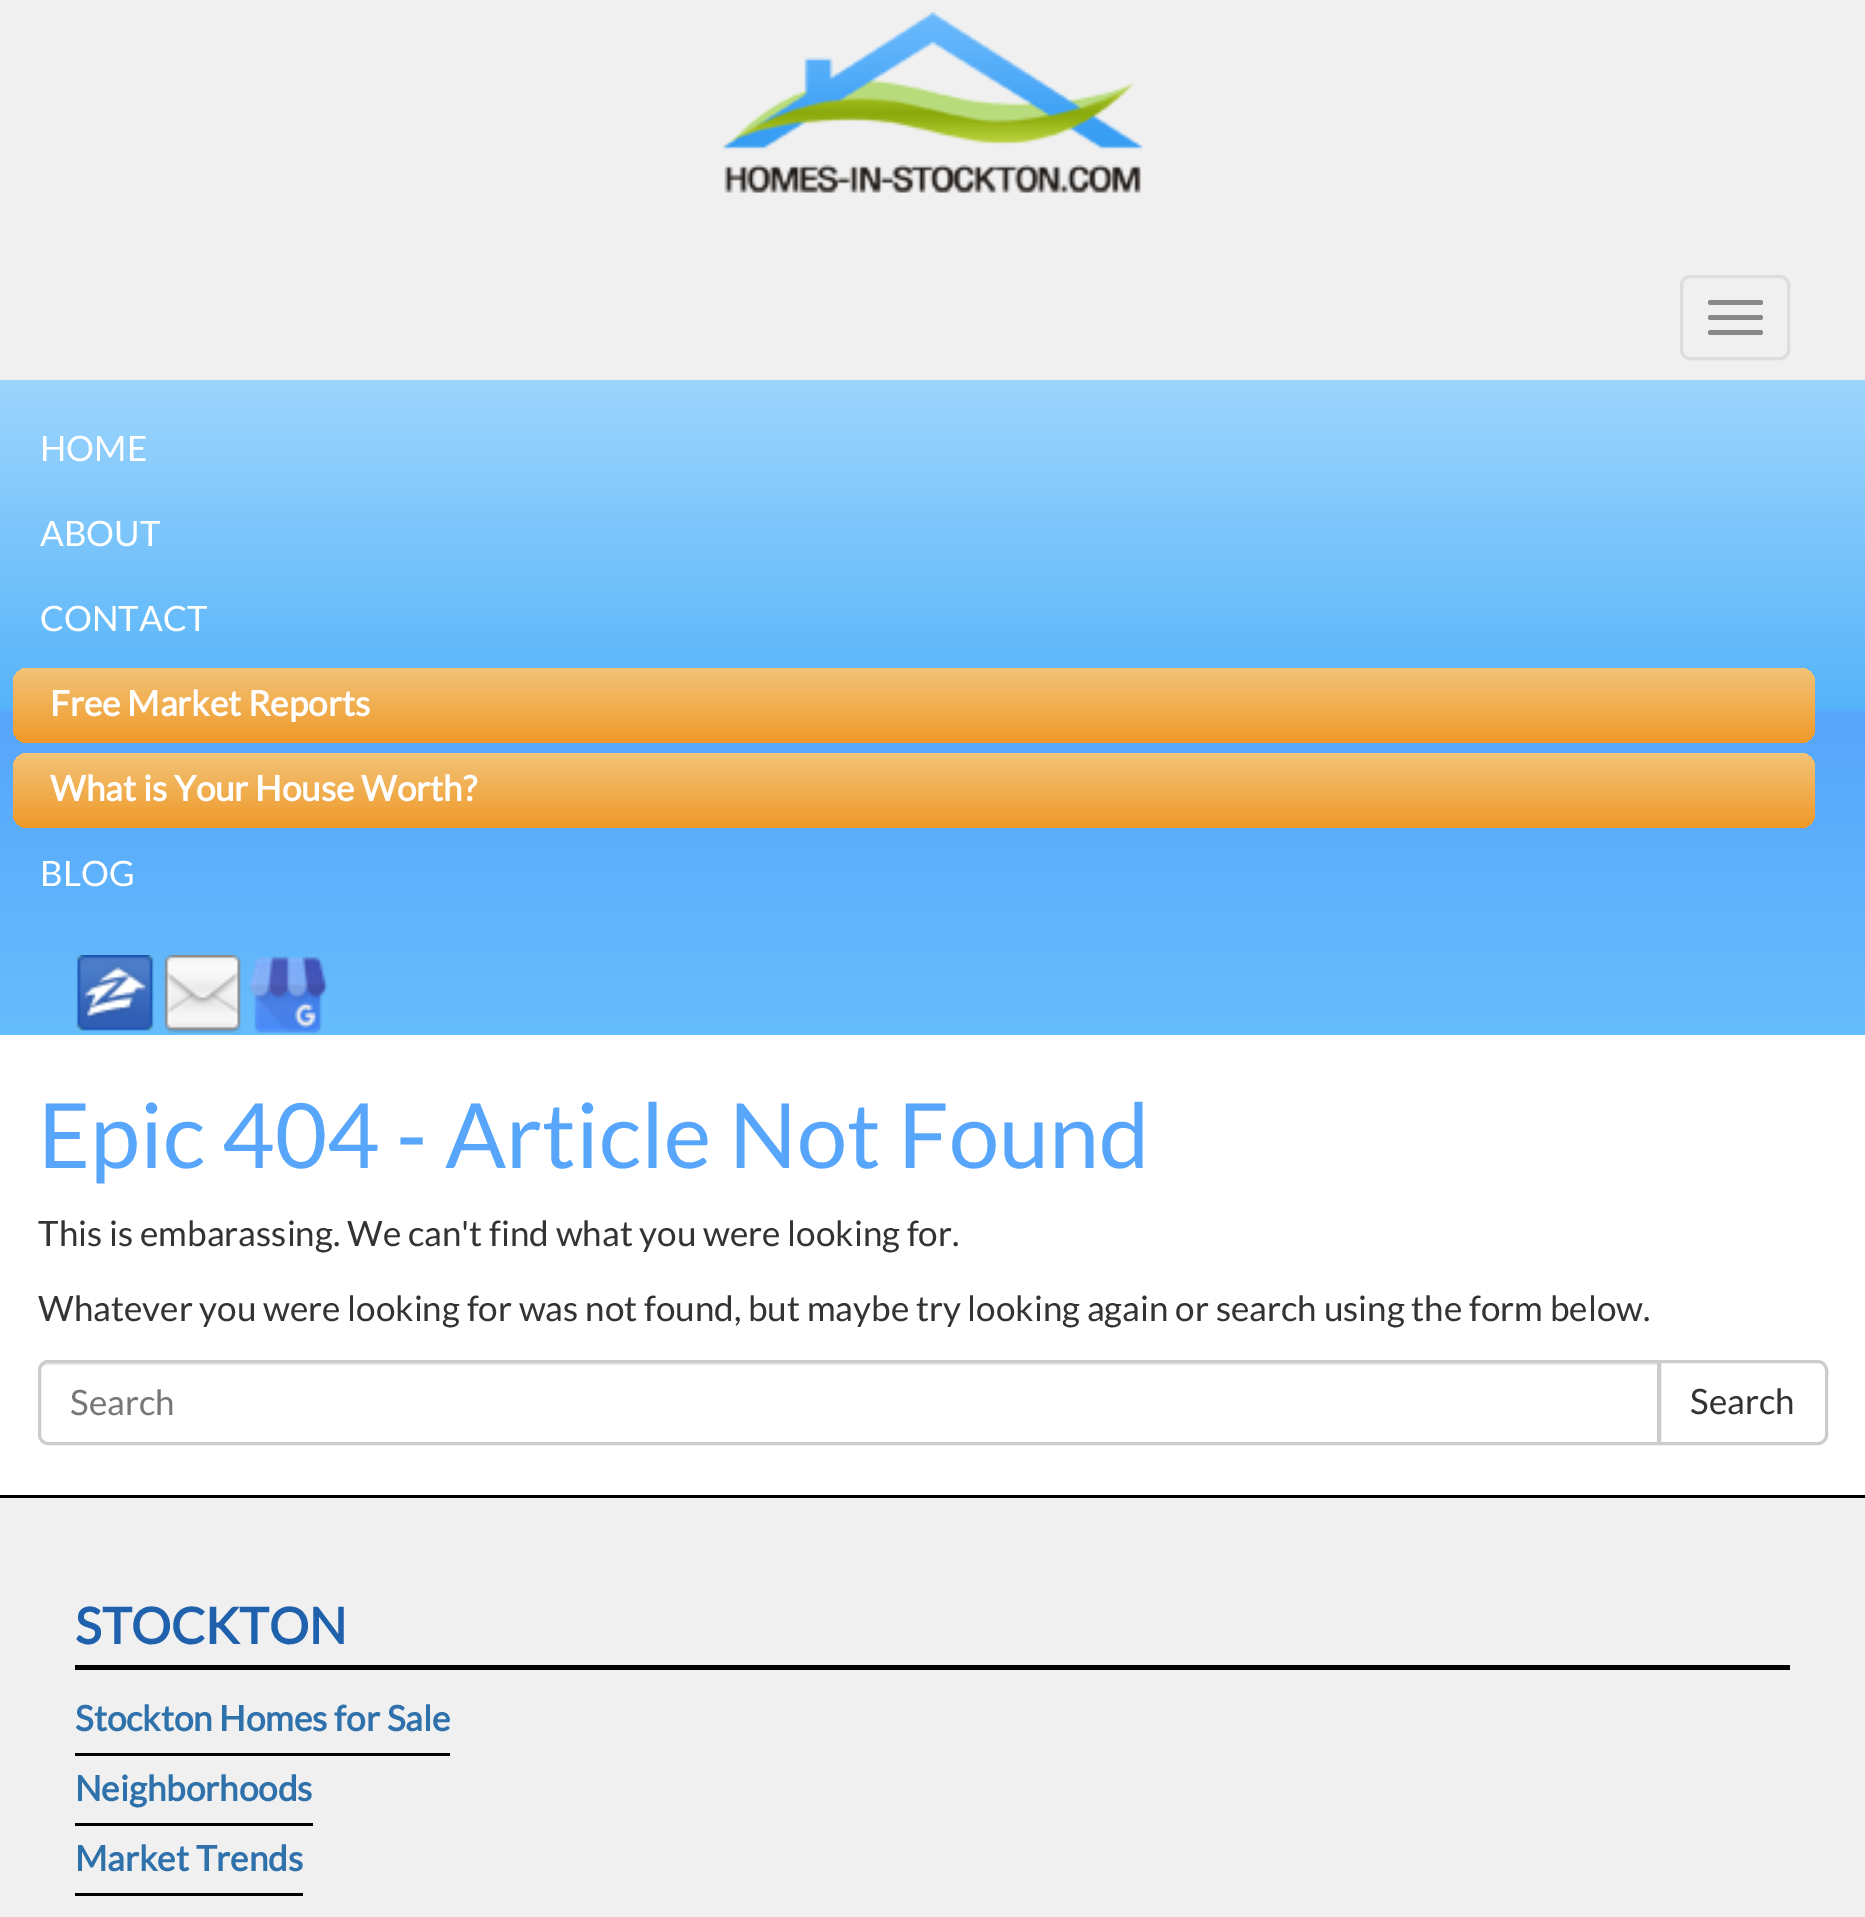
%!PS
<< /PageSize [1865 1917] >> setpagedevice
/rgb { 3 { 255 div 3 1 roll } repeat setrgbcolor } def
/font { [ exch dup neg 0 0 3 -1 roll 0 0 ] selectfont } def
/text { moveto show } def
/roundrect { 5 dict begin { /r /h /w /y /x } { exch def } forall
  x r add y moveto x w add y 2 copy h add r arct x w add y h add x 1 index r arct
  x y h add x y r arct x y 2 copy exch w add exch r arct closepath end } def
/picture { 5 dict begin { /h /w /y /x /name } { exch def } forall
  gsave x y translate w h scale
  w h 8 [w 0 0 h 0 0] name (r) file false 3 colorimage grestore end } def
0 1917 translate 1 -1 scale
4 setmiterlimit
255 255 255 rgb
0 0 1865 1917 rectfill
240 240 240 rgb
0 0 1865 380 rectfill
(img_01.rgb) 722 12 421 181 picture
221 221 221 rgb
3 setlinewidth
1681.5 276.5 107 82 8.5 roundrect stroke
136 136 136 rgb
1708 300 55 5 2.5 roundrect fill
1708 315 55 5 2.5 roundrect fill
1708 330 55 5 2.5 roundrect fill
gsave 0 380 moveto 1865 0 rlineto 0 655 rlineto -1865 0 rlineto closepath clip newpath
<< /ShadingType 2 /ColorSpace /DeviceRGB /Coords [933 380 933 1035] /Extend [true true] /Function << /FunctionType 3 /Domain [0 1] /Functions [<< /FunctionType 2 /Domain [0 1] /C0 [0.616 0.835 0.992] /C1 [0.337 0.706 0.976] /N 1 >> << /FunctionType 2 /Domain [0 1] /C0 [0.337 0.706 0.976] /C1 [0.341 0.651 0.984] /N 1 >> << /FunctionType 2 /Domain [0 1] /C0 [0.341 0.651 0.984] /C1 [0.4 0.741 0.984] /N 1 >>] /Bounds [0.5 0.51] /Encode [0 1 0 1 0 1] >> >> shfill grestore
gsave 13 668 1802 75 15 roundrect clip newpath
<< /ShadingType 2 /ColorSpace /DeviceRGB /Coords [914 667 914 743] /Extend [true true] /Function << /FunctionType 2 /Domain [0 1] /C0 [0.949 0.765 0.475] /C1 [0.941 0.6 0.157] /N 1 >> >> shfill grestore
gsave 13 753 1802 75 15 roundrect clip newpath
<< /ShadingType 2 /ColorSpace /DeviceRGB /Coords [914 752 914 828] /Extend [true true] /Function << /FunctionType 2 /Domain [0 1] /C0 [0.949 0.765 0.475] /C1 [0.941 0.6 0.157] /N 1 >> >> shfill grestore
(img_02.rgb) 76 955 78 76 picture
(img_03.rgb) 164 955 77 78 picture
(img_04.rgb) 249 956 79 78 picture
204 204 204 rgb
1659.5 1361.5 moveto 158.5 0 rlineto 4.5 0 8.5 4 8.5 8.5 rcurveto 0 65 rlineto 0 4.5 -4 8.5 -8.5 8.5 rcurveto -158.5 0 rlineto closepath stroke
255 255 255 rgb
48 1360 moveto 1612 0 rlineto 0 85 rlineto -1612 0 rlineto -5.5 0 -10 -4.5 -10 -10 rcurveto 0 -65 rlineto 0 -5.5 4.5 -10 10 -10 rcurveto closepath fill
236 236 236 rgb
48 1365 moveto 1610 0 rlineto 0 -2 rlineto -1610 0 rlineto -5 0 -8 4 -8 9 rcurveto 0 -4 3 -7 8 -7 rcurveto closepath fill
204 204 204 rgb
48 1361.5 moveto 1610.5 0 rlineto 0 82 rlineto -1610.5 0 rlineto -4.5 0 -8.5 -4 -8.5 -8.5 rcurveto 0 -65 rlineto 0 -4.5 4 -8.5 8.5 -8.5 rcurveto closepath stroke
240 240 240 rgb
0 1498 1865 419 rectfill
0 0 0 rgb
0 1495 1865 3 rectfill
75 1665 1715 5 rectfill
75 1753 375 3 rectfill
75 1823 238 3 rectfill
75 1893 228 3 rectfill
/Lato-Regular 35 font
255 255 255 rgb
(HOME) 40 461 text
(ABOUT) 40 546 text
(CONTACT) 40 631 text
/Lato-Bold 35 font
(Free Market Reports) 50 716 text
(What is Your House Worth?) 50 801 text
/Lato-Regular 35 font
(BLOG) 40 886 text
/Lato-Regular 90 font
87 166 251 rgb
(Epic 404 - Article Not Found) 38 1168 text
/Lato-Regular 35 font
51 51 51 rgb
(This is embarassing. We can't find what you were looking for.) 38 1246 text
(Whatever you were looking for was not found, but maybe try looking again or search using the form below.) 38 1321 text
119 119 119 rgb
(Search) 70 1415 text
51 51 51 rgb
(Search) 1690 1414 text
/Lato-Bold 50 font
32 97 173 rgb
(STOCKTON) 75 1644 text
/Lato-Bold 35 font
46 113 171 rgb
(Stockton Homes for Sale) 75 1731 text
(Neighborhoods) 75 1801 text
(Market Trends) 75 1871 text
showpage
